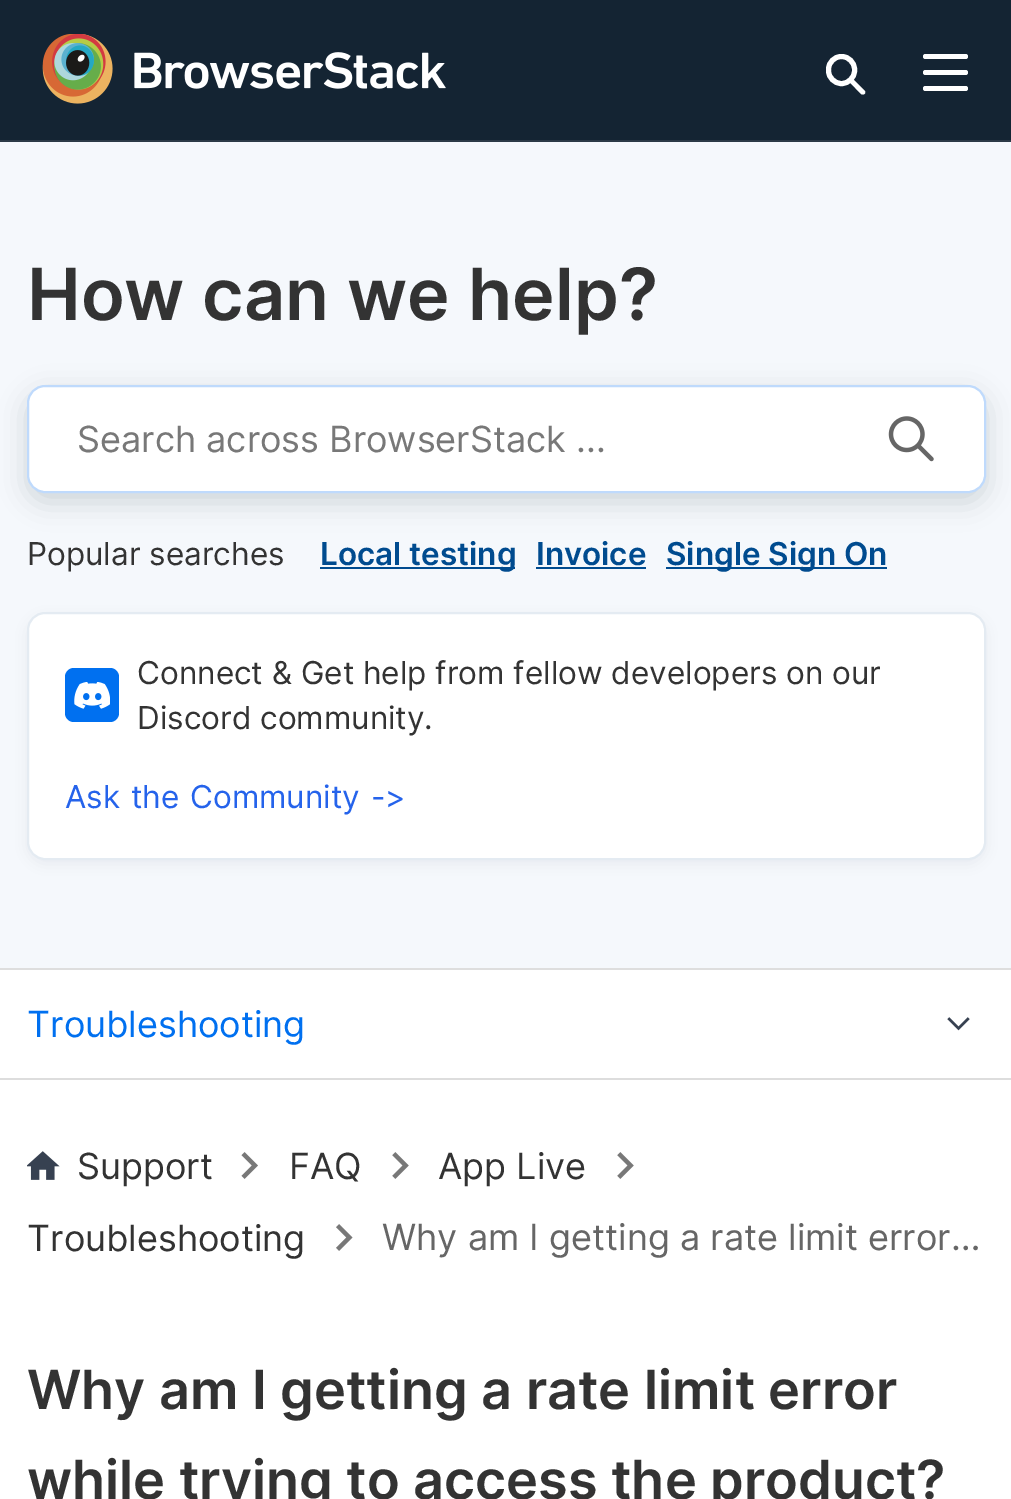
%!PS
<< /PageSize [1011 1499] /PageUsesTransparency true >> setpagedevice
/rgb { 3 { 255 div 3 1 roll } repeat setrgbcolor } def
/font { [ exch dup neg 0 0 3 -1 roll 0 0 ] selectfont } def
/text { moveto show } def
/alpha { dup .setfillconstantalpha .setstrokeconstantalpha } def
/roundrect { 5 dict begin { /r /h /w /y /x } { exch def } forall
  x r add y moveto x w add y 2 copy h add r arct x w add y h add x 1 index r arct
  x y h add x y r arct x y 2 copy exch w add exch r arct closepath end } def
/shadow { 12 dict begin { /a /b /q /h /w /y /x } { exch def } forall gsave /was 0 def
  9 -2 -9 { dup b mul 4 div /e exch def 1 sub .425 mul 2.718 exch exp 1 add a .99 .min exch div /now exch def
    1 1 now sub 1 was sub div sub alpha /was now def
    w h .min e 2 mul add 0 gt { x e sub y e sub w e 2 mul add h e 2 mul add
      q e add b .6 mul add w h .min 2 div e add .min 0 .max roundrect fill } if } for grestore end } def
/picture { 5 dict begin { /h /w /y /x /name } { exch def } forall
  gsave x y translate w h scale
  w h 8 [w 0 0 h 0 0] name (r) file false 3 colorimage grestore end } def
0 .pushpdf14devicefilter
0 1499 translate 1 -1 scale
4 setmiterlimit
255 255 255 rgb
0 0 1011 1499 rectfill
20 36 51 rgb
0 0 1011 140 rectfill
44 58 71 rgb
0 140 1011 2 rectfill
(img_01.rgb) 42 34 404 70 picture
255 255 255 rgb
5 setlinewidth
828.5 56.5 26 27 13 roundrect stroke
850 79.5 moveto 1 -1 2.5 -1 3.5 0 rcurveto 11 11 rlineto 1 1 1 2.5 0 3.5 rcurveto -1 0.5 -2.5 0.5 -3.5 0 rcurveto -11 -11.5 rlineto -1 -0.5 -1 -2 0 -3 rcurveto closepath fill
923 54 45 5 2.5 roundrect fill
923 70 45 5 2.5 roundrect fill
923 86 45 5 2.5 roundrect fill
245 248 252 rgb
0 142 1011 826 rectfill
0 31 31 rgb
27 394 959 108 18 13.5 0.16 shadow
255 255 255 rgb
28 386 957 106 17 roundrect gsave fill grestore
191 218 252 rgb
2 setlinewidth
stroke
(img_02.rgb) 888 416 46 46 picture
0 75 143 rgb
320 567 195 2 rectfill
536 567 110 2 rectfill
666 567 221 2 rectfill
16 24 40 rgb
27 617 959 247 18 7 0.06 shadow
255 255 255 rgb
28 613 957 246 17 roundrect gsave fill grestore
228 235 242 rgb
stroke
0 112 240 rgb
65 668 54 54 9 roundrect fill
(img_03.rgb) 74 682 36 27 picture
221 221 221 rgb
0 1078 1011 2 rectfill
222 222 222 rgb
0 968 1011 2 rectfill
(img_04.rgb) 947 1017 23 14 picture
(img_05.rgb) 27 1151 33 29 picture
(img_06.rgb) 241 1152 17 27 picture
(img_07.rgb) 392 1152 17 27 picture
(img_07.rgb) 617 1152 17 27 picture
(img_08.rgb) 336 1224 17 27 picture
/Inter-SemiBold 72 font
51 51 51 rgb
(How can we help?) 27 320 text
/Inter-Regular 36 font
120 120 120 rgb
(Search across BrowserStack ...) 77 452 text
/Inter-Regular 31.5 font
51 51 51 rgb
(Popular searches) 27 565 text
/Inter-SemiBold 31.5 font
0 75 143 rgb
(Local testing) 320 565 text
(Invoice) 536 565 text
(Single Sign On) 666 565 text
/Inter-Regular 31.5 font
51 51 51 rgb
(Connect & Get help from fellow developers on our) 137 684 text
(Discord community.) 137 729 text
37 99 235 rgb
65 808 moveto 2 0 32 (Ask the Community ->) widthshow
/Inter-Regular 36 font
0 112 240 rgb
(Troubleshooting) 27 1037 text
51 51 51 rgb
(Support) 77 1179 text
(FAQ) 289 1179 text
(App Live) 438 1179 text
(Troubleshooting) 27 1251 text
102 102 102 rgb
(Why am I getting a rate limit error…) 382 1250 text
/Inter-SemiBold 54 font
51 51 51 rgb
(Why am I getting a rate limit error) 27 1409 text
(while trying to access the product?) 27 1499 text
.poppdf14devicefilter showpage
